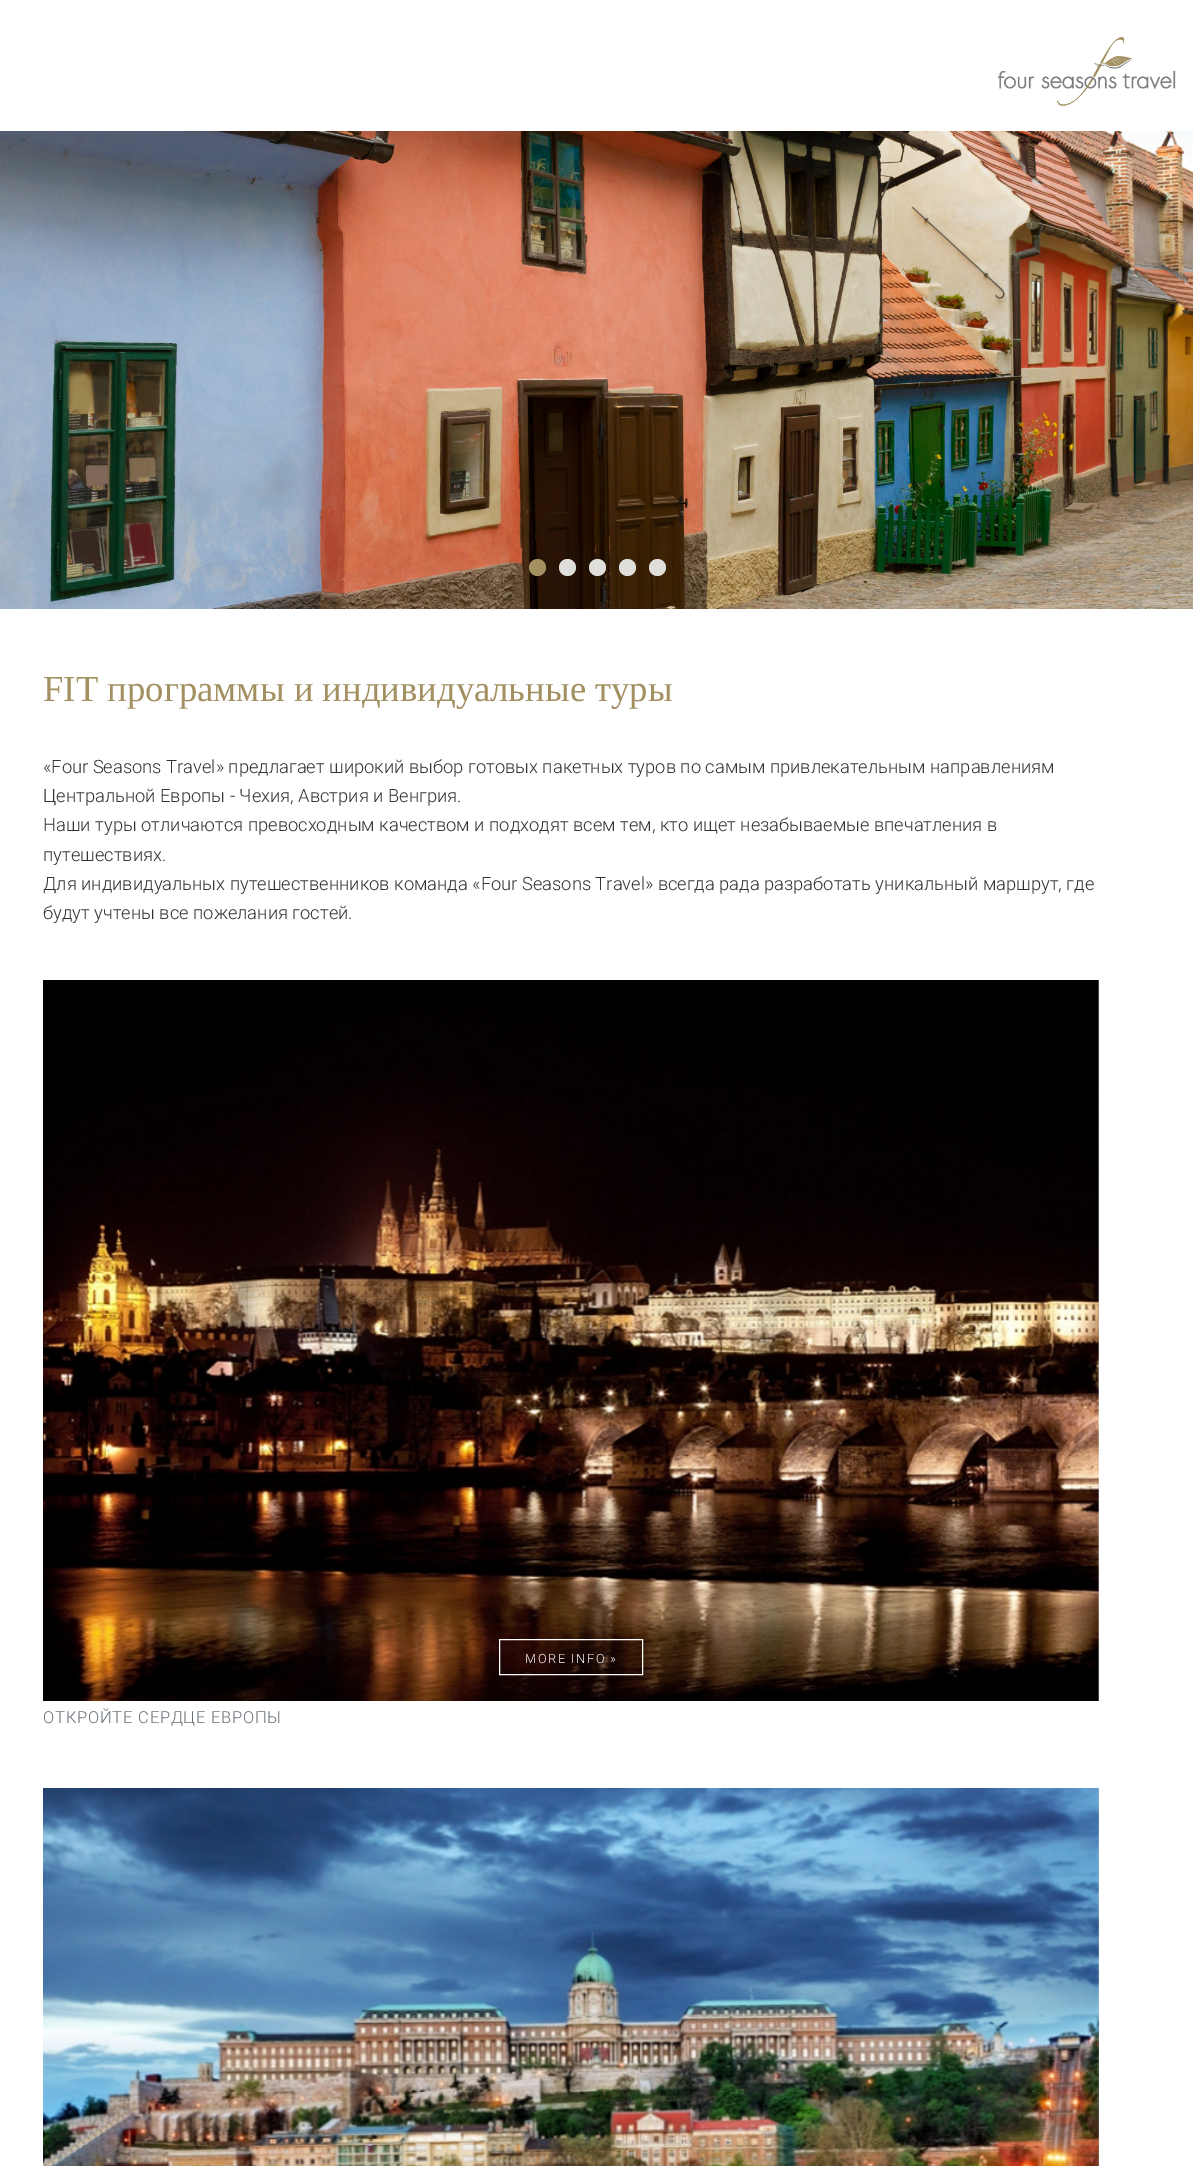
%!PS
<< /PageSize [1193 2166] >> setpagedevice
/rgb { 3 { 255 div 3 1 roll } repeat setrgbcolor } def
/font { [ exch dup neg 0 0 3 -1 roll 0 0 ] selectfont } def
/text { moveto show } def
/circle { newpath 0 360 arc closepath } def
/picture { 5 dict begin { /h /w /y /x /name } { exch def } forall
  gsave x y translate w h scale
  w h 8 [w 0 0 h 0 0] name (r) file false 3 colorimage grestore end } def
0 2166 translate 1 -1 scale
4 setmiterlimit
255 255 255 rgb
0 0 1193 2166 rectfill
(img_01.rgb) 998 37 178 69 picture
(img_02.rgb) 0 131 1193 478 picture
162 144 97 rgb
537.5 567.5 8.5 circle fill
223 222 218 rgb
567.5 567.5 8.5 circle fill
597.5 567.5 8.5 circle fill
627.5 567.5 8.5 circle fill
657.5 567.5 8.5 circle fill
(img_03.rgb) 43 980 1056 721 picture
255 255 255 rgb
499.5 1639.5 143 35 rectstroke
(img_04.rgb) 43 1788 1056 378 picture
/LiberationSerif-Regular 36.7 font
162 144 97 rgb
(FIT программы и индивидуальные туры) 43 701 text
/Roboto-Light 18.33 font
51 51 51 rgb
(«Four Seasons Travel» предлагает широкий выбор готовых пакетных туров по самым привлекательным направлениям) 43 773 text
(Центральной Европы - Чехия, Австрия и Венгрия.) 43 802 text
(Наши туры отличаются превосходным качеством и подходят всем тем, кто ищет незабываемые впечатления в) 43 831 text
(путешествиях.) 43 861 text
(Для индивидуальных путешественников команда «Four Seasons Travel» всегда рада разработать уникальный маршрут, где) 43 890 text
(будут учтены все пожелания гостей.) 43 919 text
/Roboto-Light 12.75 font
255 255 255 rgb
525 1663 moveto 1.6 0 (MORE INFO ») ashow
/Roboto-Light 16.5 font
102 111 119 rgb
43 1723 moveto 0.8 0 (ОТКРОЙТЕ СЕРДЦЕ ЕВРОПЫ) ashow
showpage
